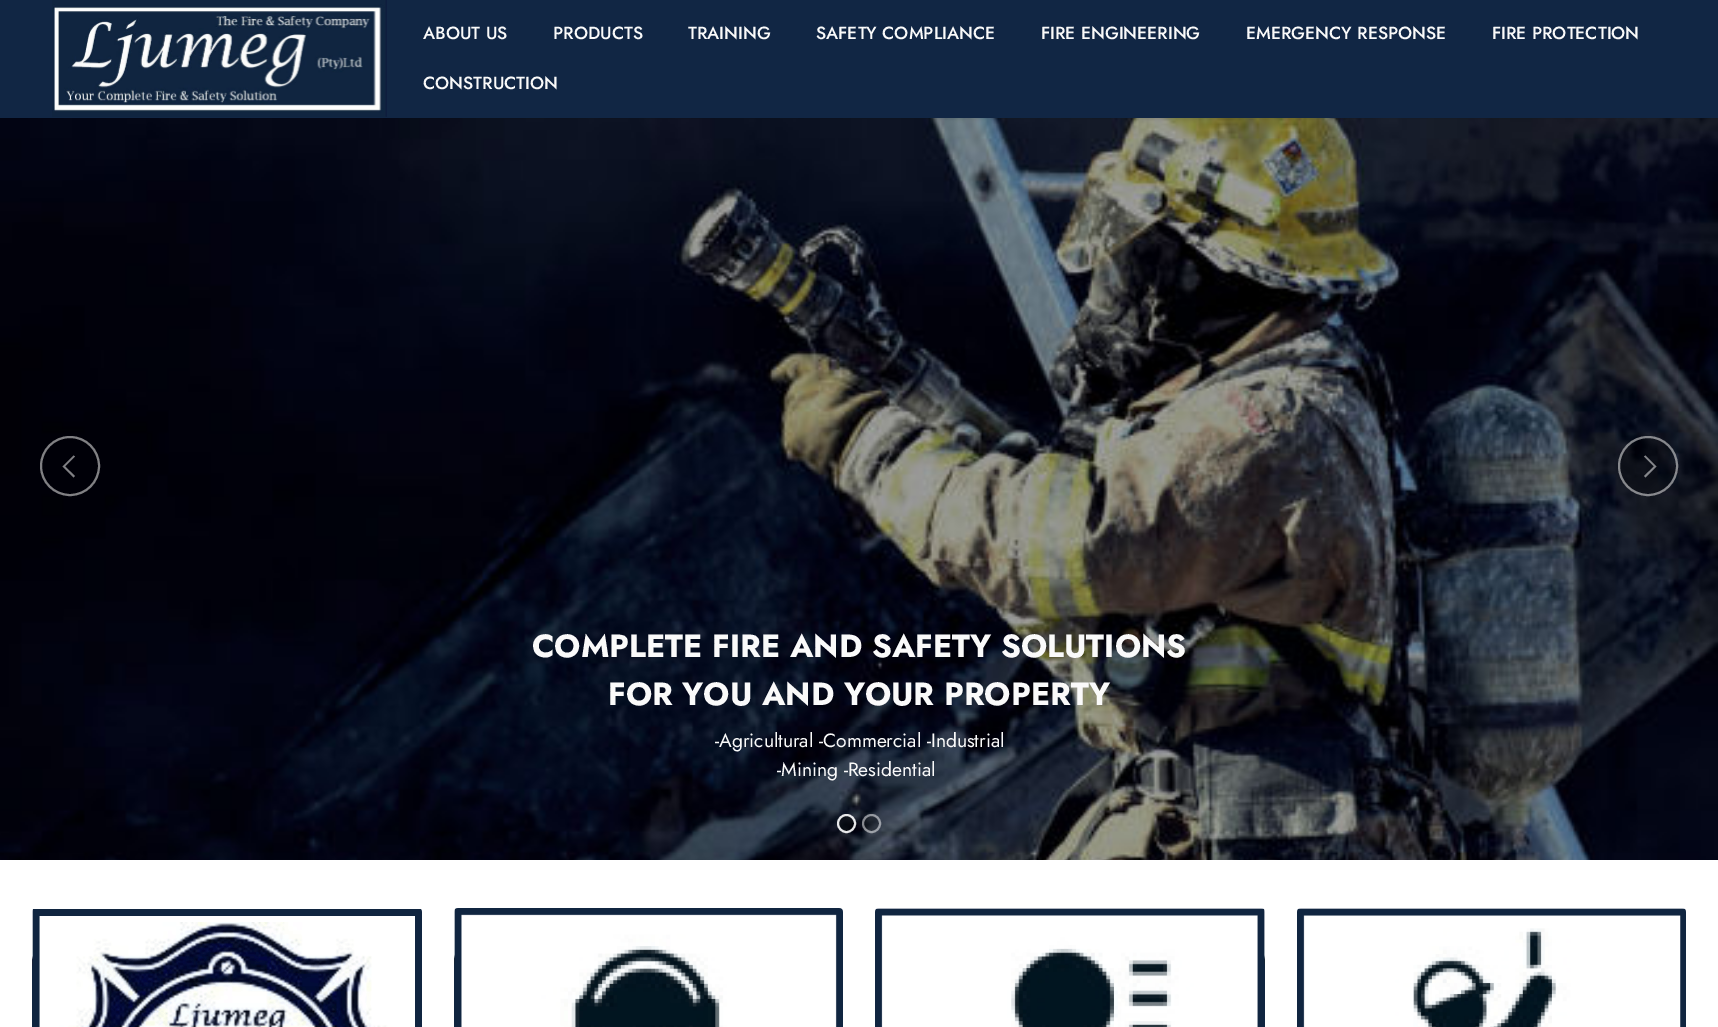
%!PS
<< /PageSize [1718 1027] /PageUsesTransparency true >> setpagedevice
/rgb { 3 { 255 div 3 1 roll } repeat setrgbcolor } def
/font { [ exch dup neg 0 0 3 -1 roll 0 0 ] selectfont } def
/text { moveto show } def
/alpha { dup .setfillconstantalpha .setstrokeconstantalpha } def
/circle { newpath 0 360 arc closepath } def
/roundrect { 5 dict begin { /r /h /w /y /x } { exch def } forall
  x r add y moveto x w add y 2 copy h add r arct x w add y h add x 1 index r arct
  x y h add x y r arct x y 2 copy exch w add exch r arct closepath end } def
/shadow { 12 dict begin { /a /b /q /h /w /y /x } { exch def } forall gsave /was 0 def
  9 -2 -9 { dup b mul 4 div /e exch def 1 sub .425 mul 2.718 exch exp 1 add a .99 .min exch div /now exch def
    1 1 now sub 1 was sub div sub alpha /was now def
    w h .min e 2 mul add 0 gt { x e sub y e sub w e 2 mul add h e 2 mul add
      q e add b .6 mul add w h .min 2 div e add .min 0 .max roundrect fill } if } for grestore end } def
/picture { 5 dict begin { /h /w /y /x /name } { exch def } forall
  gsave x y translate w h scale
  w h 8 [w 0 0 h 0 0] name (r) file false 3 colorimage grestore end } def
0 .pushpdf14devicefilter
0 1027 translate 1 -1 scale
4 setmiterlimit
255 255 255 rgb
0 0 1718 1027 rectfill
(img_02.rgb) 0 118 1718 742 picture
0 0 0 rgb
0 1 1718 118 0 1.5 0.1 shadow
17 38 68 rgb
0 0 1718 118 rectfill
(img_01.rgb) 52 0 335 117 picture
128 128 131 rgb
2 setlinewidth
70 466 29 circle stroke
128 128 132 rgb
75 456.5 moveto -10 10 rlineto 10 9.5 rlineto -1.5 1.5 rlineto -11 -11 rlineto 11 -11 rlineto closepath fill
0.25 alpha
0 0 0 rgb
1648 466 30 circle fill
0.5 alpha
255 255 255 rgb
1648 466 29 circle stroke
1644 476 moveto 10 -9.5 rlineto -10 -10 rlineto 1.5 -1 rlineto 11 11 rlineto -11 11 rlineto closepath fill
0.45 alpha
0 0 0 rgb
846.5 823.5 7.5 circle fill
0.9 alpha
255 255 255 rgb
846.5 823.5 8.5 circle stroke
0.25 alpha
0 0 0 rgb
871.5 823.5 7.5 circle fill
0.5 alpha
255 255 255 rgb
871.5 823.5 8.5 circle stroke
1 alpha
(img_03.rgb) 32 909 390 118 picture
(img_04.rgb) 454 908 389 119 picture
(img_05.rgb) 875 908 390 119 picture
(img_06.rgb) 1297 908 389 119 picture
/Jost-Medium 17.6 font
250 250 250 rgb
(ABOUT US) 423 39 text
(PRODUCTS) 553 39 text
(TRAINING) 688 39 text
(SAFETY COMPLIANCE) 816 39 text
(FIRE ENGINEERING) 1041 39 text
(EMERGENCY RESPONSE) 1246 39 text
(FIRE PROTECTION) 1492 39 text
(CONSTRUCTION) 423 89 text
/Jost-Bold 32 font
(COMPLETE FIRE AND SAFETY SOLUTIONS) 532 657 text
(FOR YOU AND YOUR PROPERTY) 608 705 text
/Jost-Regular 19.25 font
(-Agricultural -Commercial -Industrial) 715 747 text
(-Mining -Residential) 777 776 text
.poppdf14devicefilter showpage
